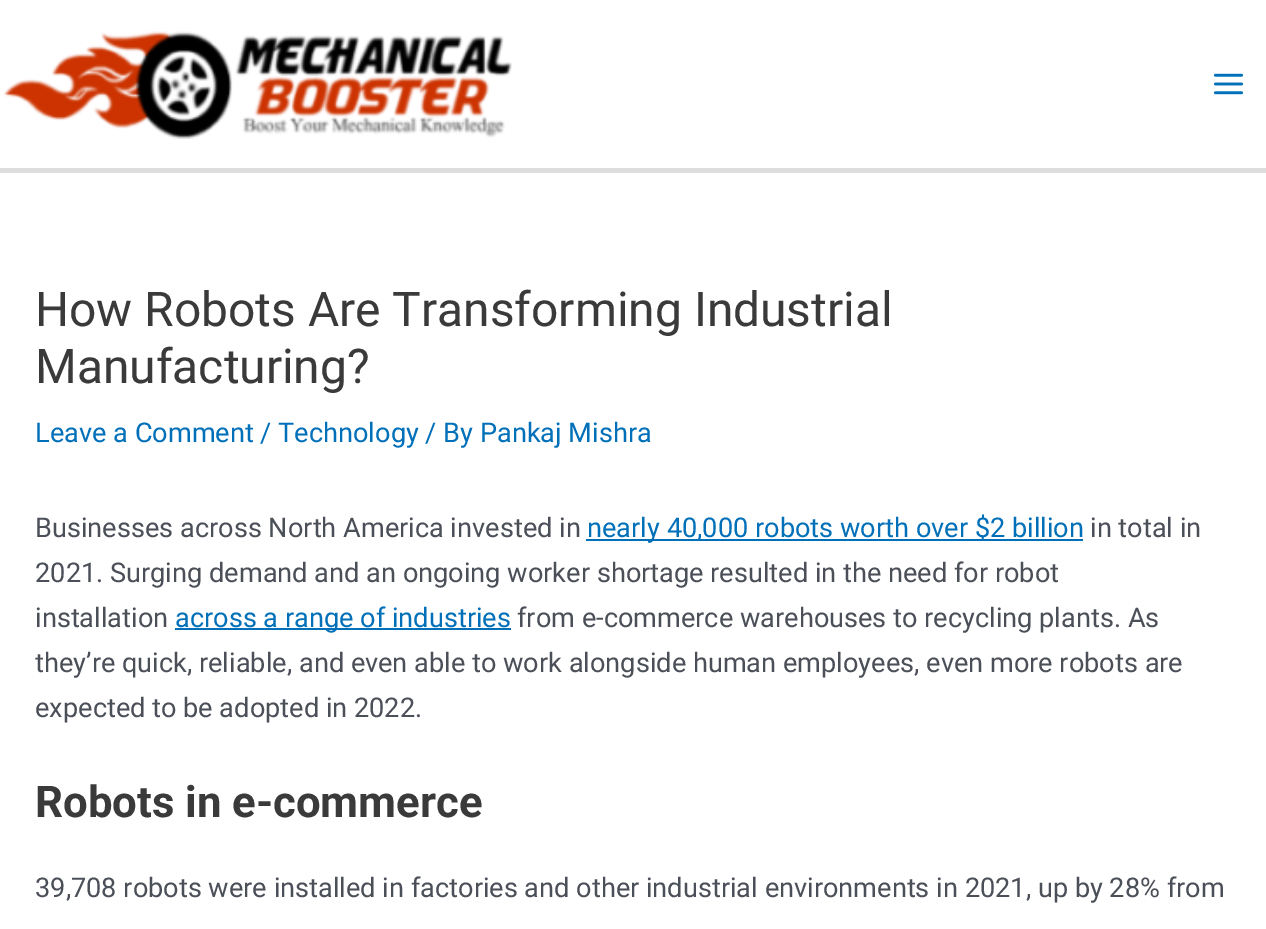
%!PS
<< /PageSize [1266 929] >> setpagedevice
/rgb { 3 { 255 div 3 1 roll } repeat setrgbcolor } def
/font { [ exch dup neg 0 0 3 -1 roll 0 0 ] selectfont } def
/text { moveto show } def
/picture { 5 dict begin { /h /w /y /x /name } { exch def } forall
  gsave x y translate w h scale
  w h 8 [w 0 0 h 0 0] name (r) file false 3 colorimage grestore end } def
0 929 translate 1 -1 scale
4 setmiterlimit
255 255 255 rgb
0 0 1266 929 rectfill
221 221 221 rgb
0 168 1266 5 rectfill
(img_01.rgb) 3 31 509 108 picture
(img_02.rgb) 1213 73 31 22 picture
1 112 185 rgb
586 539 497 2 rectfill
175 628 336 2 rectfill
/Roboto-Regular 47.9 font
58 58 58 rgb
(How Robots Are Transforming Industrial) 35 326 text
(Manufacturing?) 35 383 text
/Roboto-Regular 27.15 font
1 112 185 rgb
(Leave a Comment / Technology / By Pankaj Mishra) 35 442 text
75 79 88 rgb
(Businesses across North America invested in) 35 537 text
1 112 185 rgb
(nearly 40,000 robots worth over $2 billion) 587 537 text
75 79 88 rgb
(in total in) 1090 537 text
(2021. Surging demand and an ongoing worker shortage resulted in the need for robot) 35 582 text
(installation) 35 627 text
1 112 185 rgb
(across a range of industries) 175 627 text
75 79 88 rgb
(from e-commerce warehouses to recycling plants. As) 517 627 text
(they’re quick, reliable, and even able to work alongside human employees, even more robots are) 35 672 text
(expected to be adopted in 2022.) 35 717 text
/Roboto-Bold 43.75 font
58 58 58 rgb
(Robots in e-commerce) 35 817 text
/Roboto-Regular 27.15 font
75 79 88 rgb
(39,708 robots were installed in factories and other industrial environments in 2021, up by 28% from) 35 897 text
showpage
